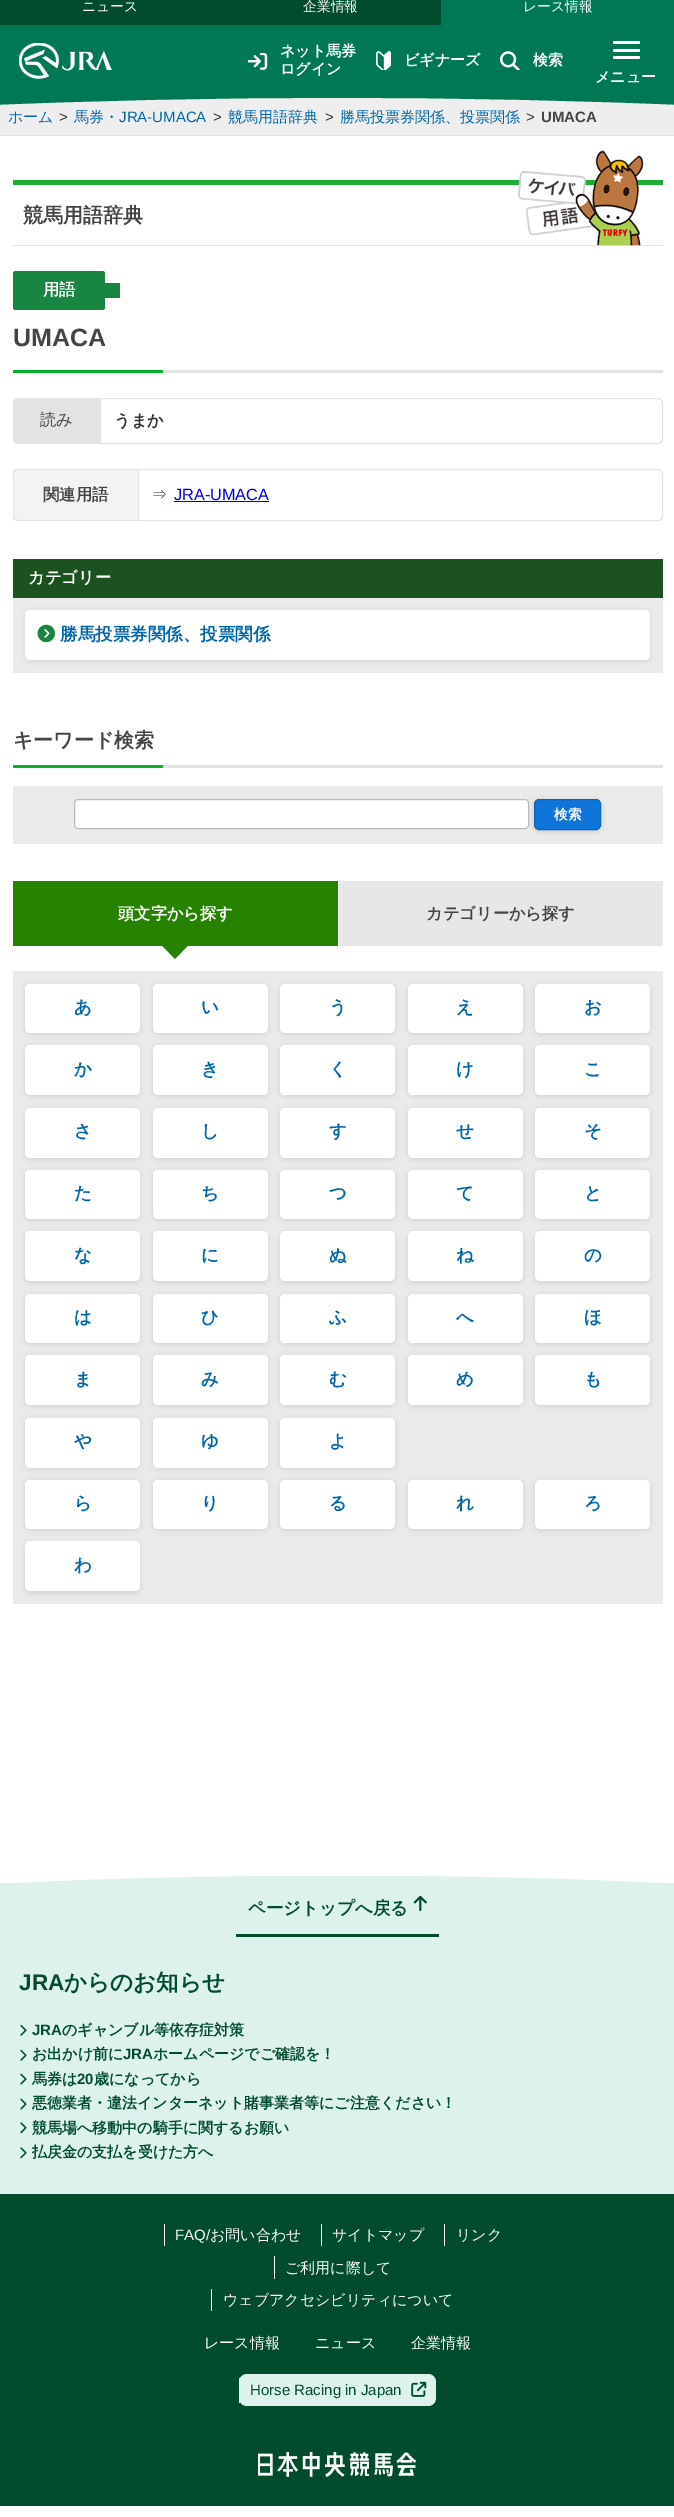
%!PS
<< /PageSize [674 2517] /PageUsesTransparency true >> setpagedevice
/rgb { 3 { 255 div 3 1 roll } repeat setrgbcolor } def
/font { [ exch dup neg 0 0 3 -1 roll 0 0 ] selectfont } def
/text { moveto show } def
/alpha { dup .setfillconstantalpha .setstrokeconstantalpha } def
/roundrect { 5 dict begin { /r /h /w /y /x } { exch def } forall
  x r add y moveto x w add y 2 copy h add r arct x w add y h add x 1 index r arct
  x y h add x y r arct x y 2 copy exch w add exch r arct closepath end } def
/shadow { 12 dict begin { /a /b /q /h /w /y /x } { exch def } forall gsave /was 0 def
  9 -2 -9 { dup b mul 4 div /e exch def 1 sub .425 mul 2.718 exch exp 1 add a .99 .min exch div /now exch def
    1 1 now sub 1 was sub div sub alpha /was now def
    w h .min e 2 mul add 0 gt { x e sub y e sub w e 2 mul add h e 2 mul add
      q e add b .6 mul add w h .min 2 div e add .min 0 .max roundrect fill } if } for grestore end } def
/picture { 5 dict begin { /h /w /y /x /name } { exch def } forall
  gsave x y translate w h scale
  w h 8 [w 0 0 h 0 0] name (r) file false 3 colorimage grestore end } def
0 .pushpdf14devicefilter
0 2517 translate 1 -1 scale
4 setmiterlimit
255 255 255 rgb
0 0 674 2517 rectfill
0 120 83 rgb
0 25 674 73 rectfill
0 76 44 rgb
0 0 441 25 rectfill
0 120 83 rgb
441 0 233 25 rectfill
(img_01.rgb) 19 43 94 36 picture
(img_02.rgb) 248 53 20 17 picture
(img_03.rgb) 376 51 15 19 picture
(img_04.rgb) 500 51 20 19 picture
255 255 255 rgb
613 41 27 3 1.5 roundrect fill
613 49 27 3 1.5 roundrect fill
613 56 27 3 1.5 roundrect fill
238 238 238 rgb
0 98 674 37 rectfill
0 120 83 rgb
-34 97 moveto 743 0 rlineto 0 9 rlineto -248 -11 -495 -11 -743 0 rcurveto closepath fill
227 227 227 rgb
0 135 674 1 rectfill
31 172 55 rgb
13 180 650 5 rectfill
226 226 226 rgb
13 245 650 1 rectfill
(img_05.rgb) 518 150 126 96 picture
163 370 500 3 rectfill
24 133 66 rgb
13 271 92 39 2.5 roundrect fill
105 283 15 15 rectfill
12 174 47 rgb
13 370 150 3 rectfill
227 227 227 rgb
18 398 moveto 82 0 rlineto 0 46 rlineto -82 0 rlineto -3 0 -5 -2 -5 -5 rcurveto 0 -36 rlineto 0 -3 2 -5 5 -5 rcurveto closepath fill
100.5 398.5 moveto 557.5 0 rlineto 2.5 0 4.5 2 4.5 4.5 rcurveto 0 36 rlineto 0 2.5 -2 4.5 -4.5 4.5 rcurveto -557.5 0 rlineto closepath stroke
243 243 243 rgb
18 469 moveto 120 0 rlineto 0 52 rlineto -120 0 rlineto -3 0 -5 -2 -5 -5 rcurveto 0 -42 rlineto 0 -3 2 -5 5 -5 rcurveto closepath fill
gsave
13 271 650 1333 rectclip
227 227 227 rgb
18 469 moveto 120 0 rlineto 0 52 rlineto -120 0 rlineto -3 0 -6 -2 -6 -5 rcurveto 0 -42 rlineto 0 -3 3 -5 6 -5 rcurveto closepath 18 470 moveto 120 0 rlineto 0 50 rlineto -120 0 rlineto -3 0 -4 -2 -4 -4 rcurveto 0 -42 rlineto 0 -2 1 -4 4 -4 rcurveto closepath eofill
grestore
227 227 227 rgb
138.5 469.5 moveto 519.5 0 rlineto 2.5 0 4.5 2 4.5 4.5 rcurveto 0 42 rlineto 0 2.5 -2 4.5 -4.5 4.5 rcurveto -519.5 0 rlineto closepath stroke
0 0 238 rgb
174 501 95 1 rectfill
27 82 31 rgb
13 559 650 39 rectfill
235 235 235 rgb
13 598 650 75 rectfill
0 0 0 rgb
25 611 625 50 5 2.5 0.1 shadow
255 255 255 rgb
25 610 625 50 5 roundrect fill
(img_06.rgb) 37 624 18 19 picture
226 226 226 rgb
163 765 500 3 rectfill
12 174 47 rgb
13 765 150 3 rectfill
234 234 234 rgb
13 786 650 58 rectfill
255 255 255 rgb
74.5 799.5 454 29 3.5 roundrect gsave fill grestore
187 187 187 rgb
stroke
0 0 0 rgb
534 800 67 31 5 2.5 0.15 shadow
15 117 218 rgb
534.5 799.5 66 30 4.5 roundrect gsave fill grestore
12 99 185 rgb
stroke
38 131 0 rgb
13 881 325 65 rectfill
162.5 946 moveto 25 0 rlineto -12.5 13 rlineto closepath fill
231 231 231 rgb
339 881 324 65 rectfill
234 234 234 rgb
13 971 650 633 rectfill
0 0 0 rgb
25 985 115 49 5 2.5 0.1 shadow
255 255 255 rgb
25 984 115 49 5 roundrect fill
0 0 0 rgb
153 985 115 49 5 2.5 0.1 shadow
255 255 255 rgb
153 984 115 49 5 roundrect fill
0 0 0 rgb
280 985 115 49 5 2.5 0.1 shadow
255 255 255 rgb
280 984 115 49 5 roundrect fill
0 0 0 rgb
408 985 115 49 5 2.5 0.1 shadow
255 255 255 rgb
408 984 115 49 5 roundrect fill
0 0 0 rgb
535 985 115 49 5 2.5 0.1 shadow
255 255 255 rgb
535 984 115 49 5 roundrect fill
0 0 0 rgb
25 1046 115 50 5 2.5 0.1 shadow
255 255 255 rgb
25 1045 115 50 5 roundrect fill
0 0 0 rgb
153 1046 115 50 5 2.5 0.1 shadow
255 255 255 rgb
153 1045 115 50 5 roundrect fill
0 0 0 rgb
280 1046 115 50 5 2.5 0.1 shadow
255 255 255 rgb
280 1045 115 50 5 roundrect fill
0 0 0 rgb
408 1046 115 50 5 2.5 0.1 shadow
255 255 255 rgb
408 1045 115 50 5 roundrect fill
0 0 0 rgb
535 1046 115 50 5 2.5 0.1 shadow
255 255 255 rgb
535 1045 115 50 5 roundrect fill
0 0 0 rgb
25 1109 115 50 5 2.5 0.1 shadow
255 255 255 rgb
25 1108 115 50 5 roundrect fill
0 0 0 rgb
153 1109 115 50 5 2.5 0.1 shadow
255 255 255 rgb
153 1108 115 50 5 roundrect fill
0 0 0 rgb
280 1109 115 50 5 2.5 0.1 shadow
255 255 255 rgb
280 1108 115 50 5 roundrect fill
0 0 0 rgb
408 1109 115 50 5 2.5 0.1 shadow
255 255 255 rgb
408 1108 115 50 5 roundrect fill
0 0 0 rgb
535 1109 115 50 5 2.5 0.1 shadow
255 255 255 rgb
535 1108 115 50 5 roundrect fill
0 0 0 rgb
25 1171 115 49 5 2.5 0.1 shadow
255 255 255 rgb
25 1170 115 49 5 roundrect fill
0 0 0 rgb
153 1171 115 49 5 2.5 0.1 shadow
255 255 255 rgb
153 1170 115 49 5 roundrect fill
0 0 0 rgb
280 1171 115 49 5 2.5 0.1 shadow
255 255 255 rgb
280 1170 115 49 5 roundrect fill
0 0 0 rgb
408 1171 115 49 5 2.5 0.1 shadow
255 255 255 rgb
408 1170 115 49 5 roundrect fill
0 0 0 rgb
535 1171 115 49 5 2.5 0.1 shadow
255 255 255 rgb
535 1170 115 49 5 roundrect fill
0 0 0 rgb
25 1233 115 50 5 2.5 0.1 shadow
255 255 255 rgb
25 1231 115 50 5 roundrect fill
0 0 0 rgb
153 1233 115 50 5 2.5 0.1 shadow
255 255 255 rgb
153 1231 115 50 5 roundrect fill
0 0 0 rgb
280 1233 115 50 5 2.5 0.1 shadow
255 255 255 rgb
280 1231 115 50 5 roundrect fill
0 0 0 rgb
408 1233 115 50 5 2.5 0.1 shadow
255 255 255 rgb
408 1231 115 50 5 roundrect fill
0 0 0 rgb
535 1233 115 50 5 2.5 0.1 shadow
255 255 255 rgb
535 1231 115 50 5 roundrect fill
0 0 0 rgb
25 1295 115 49 5 2.5 0.1 shadow
255 255 255 rgb
25 1294 115 49 5 roundrect fill
0 0 0 rgb
153 1295 115 49 5 2.5 0.1 shadow
255 255 255 rgb
153 1294 115 49 5 roundrect fill
0 0 0 rgb
280 1295 115 49 5 2.5 0.1 shadow
255 255 255 rgb
280 1294 115 49 5 roundrect fill
0 0 0 rgb
408 1295 115 49 5 2.5 0.1 shadow
255 255 255 rgb
408 1294 115 49 5 roundrect fill
0 0 0 rgb
535 1295 115 49 5 2.5 0.1 shadow
255 255 255 rgb
535 1294 115 49 5 roundrect fill
0 0 0 rgb
25 1356 115 50 5 2.5 0.1 shadow
255 255 255 rgb
25 1355 115 50 5 roundrect fill
0 0 0 rgb
153 1356 115 50 5 2.5 0.1 shadow
255 255 255 rgb
153 1355 115 50 5 roundrect fill
0 0 0 rgb
280 1356 115 50 5 2.5 0.1 shadow
255 255 255 rgb
280 1355 115 50 5 roundrect fill
0 0 0 rgb
408 1356 115 50 5 2.5 0.1 shadow
255 255 255 rgb
408 1355 115 50 5 roundrect fill
0 0 0 rgb
535 1356 115 50 5 2.5 0.1 shadow
255 255 255 rgb
535 1355 115 50 5 roundrect fill
0 0 0 rgb
25 1419 115 50 5 2.5 0.1 shadow
255 255 255 rgb
25 1418 115 50 5 roundrect fill
0 0 0 rgb
153 1419 115 50 5 2.5 0.1 shadow
255 255 255 rgb
153 1418 115 50 5 roundrect fill
0 0 0 rgb
280 1419 115 50 5 2.5 0.1 shadow
255 255 255 rgb
280 1418 115 50 5 roundrect fill
0 0 0 rgb
25 1481 115 49 5 2.5 0.1 shadow
255 255 255 rgb
25 1480 115 49 5 roundrect fill
0 0 0 rgb
153 1481 115 49 5 2.5 0.1 shadow
255 255 255 rgb
153 1480 115 49 5 roundrect fill
0 0 0 rgb
280 1481 115 49 5 2.5 0.1 shadow
255 255 255 rgb
280 1480 115 49 5 roundrect fill
0 0 0 rgb
408 1481 115 49 5 2.5 0.1 shadow
255 255 255 rgb
408 1480 115 49 5 roundrect fill
0 0 0 rgb
535 1481 115 49 5 2.5 0.1 shadow
255 255 255 rgb
535 1480 115 49 5 roundrect fill
0 0 0 rgb
25 1543 115 50 5 2.5 0.1 shadow
255 255 255 rgb
25 1541 115 50 5 roundrect fill
222 242 237 rgb
0 1883 674 311 rectfill
gsave
0 1876 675 8 rectclip
0 1884 moveto 187 -11 488 -11 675 0 rcurveto fill
grestore
0 76 44 rgb
236 1934 203 3 rectfill
(img_07.rgb) 413 1895 14 17 picture
(img_08.rgb) 20 2024 7 12 picture
(img_08.rgb) 20 2049 7 12 picture
(img_09.rgb) 20 2073 7 12 picture
(img_09.rgb) 20 2098 7 12 picture
(img_10.rgb) 20 2122 7 12 picture
(img_10.rgb) 20 2147 7 12 picture
0 2194 674 312 rectfill
255 255 255 rgb
164 2224 1 22 rectfill
321 2224 1 22 rectfill
444 2224 1 22 rectfill
274 2256 1 23 rectfill
211 2289 1 22 rectfill
222 242 237 rgb
239 2374 197 32 8 roundrect fill
255 255 255 rgb
239 2378 1 25 rectfill
(img_11.rgb) 411 2381 16 16 picture
(img_12.rgb) 258 2452 158 25 picture
/WenQuanYiZenHei-Medium 13.75 font
(ニュース) 82 11 text
(企業情報) 303 11 text
(レース情報) 523 11 text
/WenQuanYiZenHei-Bold 15 font
(ネット馬券) 280 56 text
(ログイン) 280 74 text
(ビギナーズ) 404 65 text
(検索) 533 65 text
(メニュー) 595 82 text
/WenQuanYiZenHei-Medium 15 font
0 102 170 rgb
(ホーム) 8 122 text
/LiberationSans-Regular 15 font
51 51 51 rgb
(>) 59 122 text
/WenQuanYiZenHei-Medium 15 font
0 102 170 rgb
(馬券・) 74 122 text
/LiberationSans-Regular 15 font
(JRA-UMACA) 119 122 text
51 51 51 rgb
(>) 213 122 text
/WenQuanYiZenHei-Medium 15 font
0 102 170 rgb
(競馬用語辞典) 228 122 text
/LiberationSans-Regular 15 font
51 51 51 rgb
(>) 325 122 text
/WenQuanYiZenHei-Medium 15 font
0 102 170 rgb
(勝馬投票券関係、投票関係) 340 122 text
/LiberationSans-Regular 15 font
51 51 51 rgb
(>) 526 122 text
/LiberationSans-Bold 15 font
68 68 68 rgb
(UMACA) 541 122 text
/WenQuanYiZenHei-Bold 20 font
(競馬用語辞典) 23 222 text
/WenQuanYiZenHei-Bold 16.25 font
255 255 255 rgb
(用語) 43 295 text
/LiberationSans-Bold 25 font
68 68 68 rgb
(UMACA) 13 346 text
/WenQuanYiZenHei-Medium 16.25 font
(読み) 40 425 text
/WenQuanYiZenHei-Bold 16.25 font
51 51 51 rgb
(うまか) 114 426 text
68 68 68 rgb
(関連用語) 43 500 text
/WenQuanYiZenHei-Medium 16.25 font
51 51 51 rgb
(⇒) 151 500 text
/LiberationSans-Regular 16.25 font
0 0 238 rgb
(JRA-UMACA) 174 500 text
/WenQuanYiZenHei-Bold 16.25 font
255 255 255 rgb
(カテゴリー) 28 583 text
/WenQuanYiZenHei-Bold 17.5 font
0 102 170 rgb
(勝馬投票券関係、投票関係) 60 640 text
/WenQuanYiZenHei-Bold 20 font
68 68 68 rgb
(キーワード検索) 13 747 text
/WenQuanYiZenHei-Bold 13.75 font
255 255 255 rgb
(検索) 554 819 text
/WenQuanYiZenHei-Bold 16.25 font
(頭文字から探す) 118 919 text
68 68 68 rgb
(カテゴリーから探す) 426 919 text
/WenQuanYiZenHei-Bold 17.5 font
0 102 170 rgb
(あ) 74 1013 text
(い) 201 1013 text
(う) 329 1013 text
(え) 456 1013 text
(お) 584 1013 text
(か) 74 1075 text
(き) 201 1075 text
(く) 329 1075 text
(け) 456 1075 text
(こ) 584 1075 text
(さ) 74 1137 text
(し) 201 1137 text
(す) 329 1137 text
(せ) 456 1137 text
(そ) 584 1137 text
(た) 74 1199 text
(ち) 201 1199 text
(つ) 329 1199 text
(て) 456 1199 text
(と) 584 1199 text
(な) 74 1261 text
(に) 201 1261 text
(ぬ) 329 1261 text
(ね) 456 1261 text
(の) 584 1261 text
(は) 74 1323 text
(ひ) 201 1323 text
(ふ) 329 1323 text
(へ) 456 1323 text
(ほ) 584 1323 text
(ま) 74 1385 text
(み) 201 1385 text
(む) 329 1385 text
(め) 456 1385 text
(も) 584 1385 text
(や) 74 1447 text
(ゆ) 201 1447 text
(よ) 329 1447 text
(ら) 74 1509 text
(り) 201 1509 text
(る) 329 1509 text
(れ) 456 1509 text
(ろ) 584 1509 text
(わ) 74 1571 text
0 76 44 rgb
(ページトップへ戻る) 248 1914 text
/LiberationSans-Bold 22.5 font
(JRA) 19 1990 text
/WenQuanYiZenHei-Bold 22.5 font
(からのお知らせ) 64 1990 text
/LiberationSans-Bold 15 font
(JRA) 32 2035 text
/WenQuanYiZenHei-Bold 15 font
(のギャンブル等依存症対策) 62 2035 text
(お出かけ前に) 32 2059 text
/LiberationSans-Bold 15 font
(JRA) 123 2059 text
/WenQuanYiZenHei-Bold 15 font
(ホームページでご確認を！) 153 2059 text
(馬券は) 32 2084 text
/LiberationSans-Bold 15 font
(20) 77 2084 text
/WenQuanYiZenHei-Bold 15 font
(歳になってから) 94 2084 text
(悪徳業者・違法インターネット賭事業者等にご注意ください！) 32 2108 text
(競馬場へ移動中の騎手に関するお願い) 32 2133 text
(払戻金の支払を受けた方へ) 32 2157 text
/LiberationSans-Regular 15 font
255 255 255 rgb
(FAQ/) 175 2240 text
/WenQuanYiZenHei-Medium 15 font
(お問い合わせ) 210 2240 text
(サイトマップ) 332 2240 text
(リンク) 456 2240 text
(ご利用に際して) 285 2273 text
(ウェブアクセシビリティについて) 223 2305 text
(レース情報) 204 2348 text
(ニュース) 315 2348 text
(企業情報) 411 2348 text
/LiberationSans-Regular 15 font
0 76 44 rgb
(Horse Racing in Japan) 250 2395 text
.poppdf14devicefilter showpage
